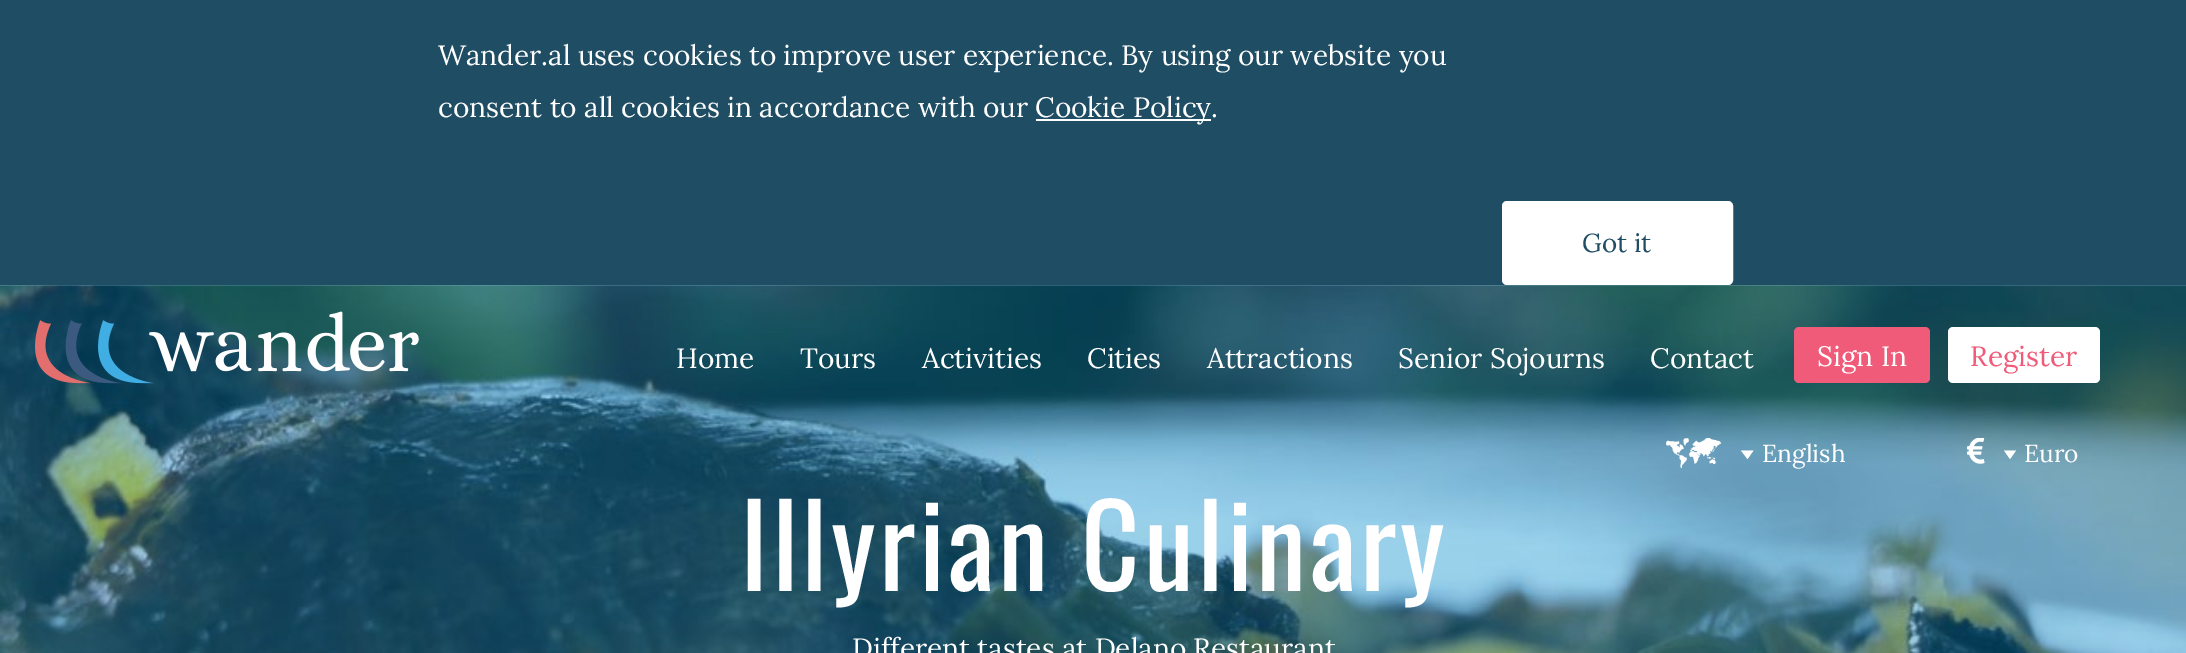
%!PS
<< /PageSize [2186 653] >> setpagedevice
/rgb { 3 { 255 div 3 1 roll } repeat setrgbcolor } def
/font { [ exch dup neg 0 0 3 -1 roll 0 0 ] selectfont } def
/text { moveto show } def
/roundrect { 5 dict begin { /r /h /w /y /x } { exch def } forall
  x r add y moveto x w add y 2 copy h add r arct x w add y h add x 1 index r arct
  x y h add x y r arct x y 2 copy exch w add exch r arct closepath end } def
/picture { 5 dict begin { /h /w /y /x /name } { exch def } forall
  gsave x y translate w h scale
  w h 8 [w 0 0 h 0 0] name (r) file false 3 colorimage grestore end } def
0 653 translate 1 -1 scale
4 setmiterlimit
255 255 255 rgb
0 0 2186 653 rectfill
31 78 100 rgb
0 0 2186 285 rectfill
255 255 255 rgb
1036 119 175 2 rectfill
1503 202 229 82 4 roundrect gsave fill grestore
2 setlinewidth
stroke
(img_04.rgb) 0 285 2186 368 picture
(img_01.rgb) 35 311 384 73 picture
240 91 121 rgb
1794 327 136 56 5 roundrect fill
255 255 255 rgb
1948 327 152 56 5 roundrect fill
(img_02.rgb) 1666 438 56 31 picture
1747.5 459 moveto 6 -8.5 rlineto -12.5 0 rlineto eofill
(img_03.rgb) 1967 438 18 26 picture
2010 459 moveto 6 -8.5 rlineto -12 0 rlineto eofill
/Lora-Regular 28 font
(Wander.al uses cookies to improve user experience. By using our website you) 438 65 text
(consent to all cookies in accordance with our) 438 117 text
(Cookie Policy.) 1035 117 text
/Lora-Regular 26 font
31 78 100 rgb
(Got it) 1582 252 text
/Lora-Regular 28 font
255 255 255 rgb
(Home) 676 368 text
(Tours) 800 368 text
(Activities) 922 368 text
(Cities) 1087 368 text
(Attractions) 1207 368 text
(Senior Sojourns) 1398 368 text
(Contact) 1650 368 text
(Sign In) 1817 366 text
240 91 121 rgb
(Register) 1970 366 text
/Lora-Regular 24.5 font
255 255 255 rgb
(English) 1762 462 text
(Euro) 2024 462 text
/Oswald-Regular 113.75 font
740 591 moveto 3.5 0 (Illyrian Culinary) ashow
/Lora-Regular 28 font
(Different tastes at Delano Restaurant) 852 658 text
showpage
